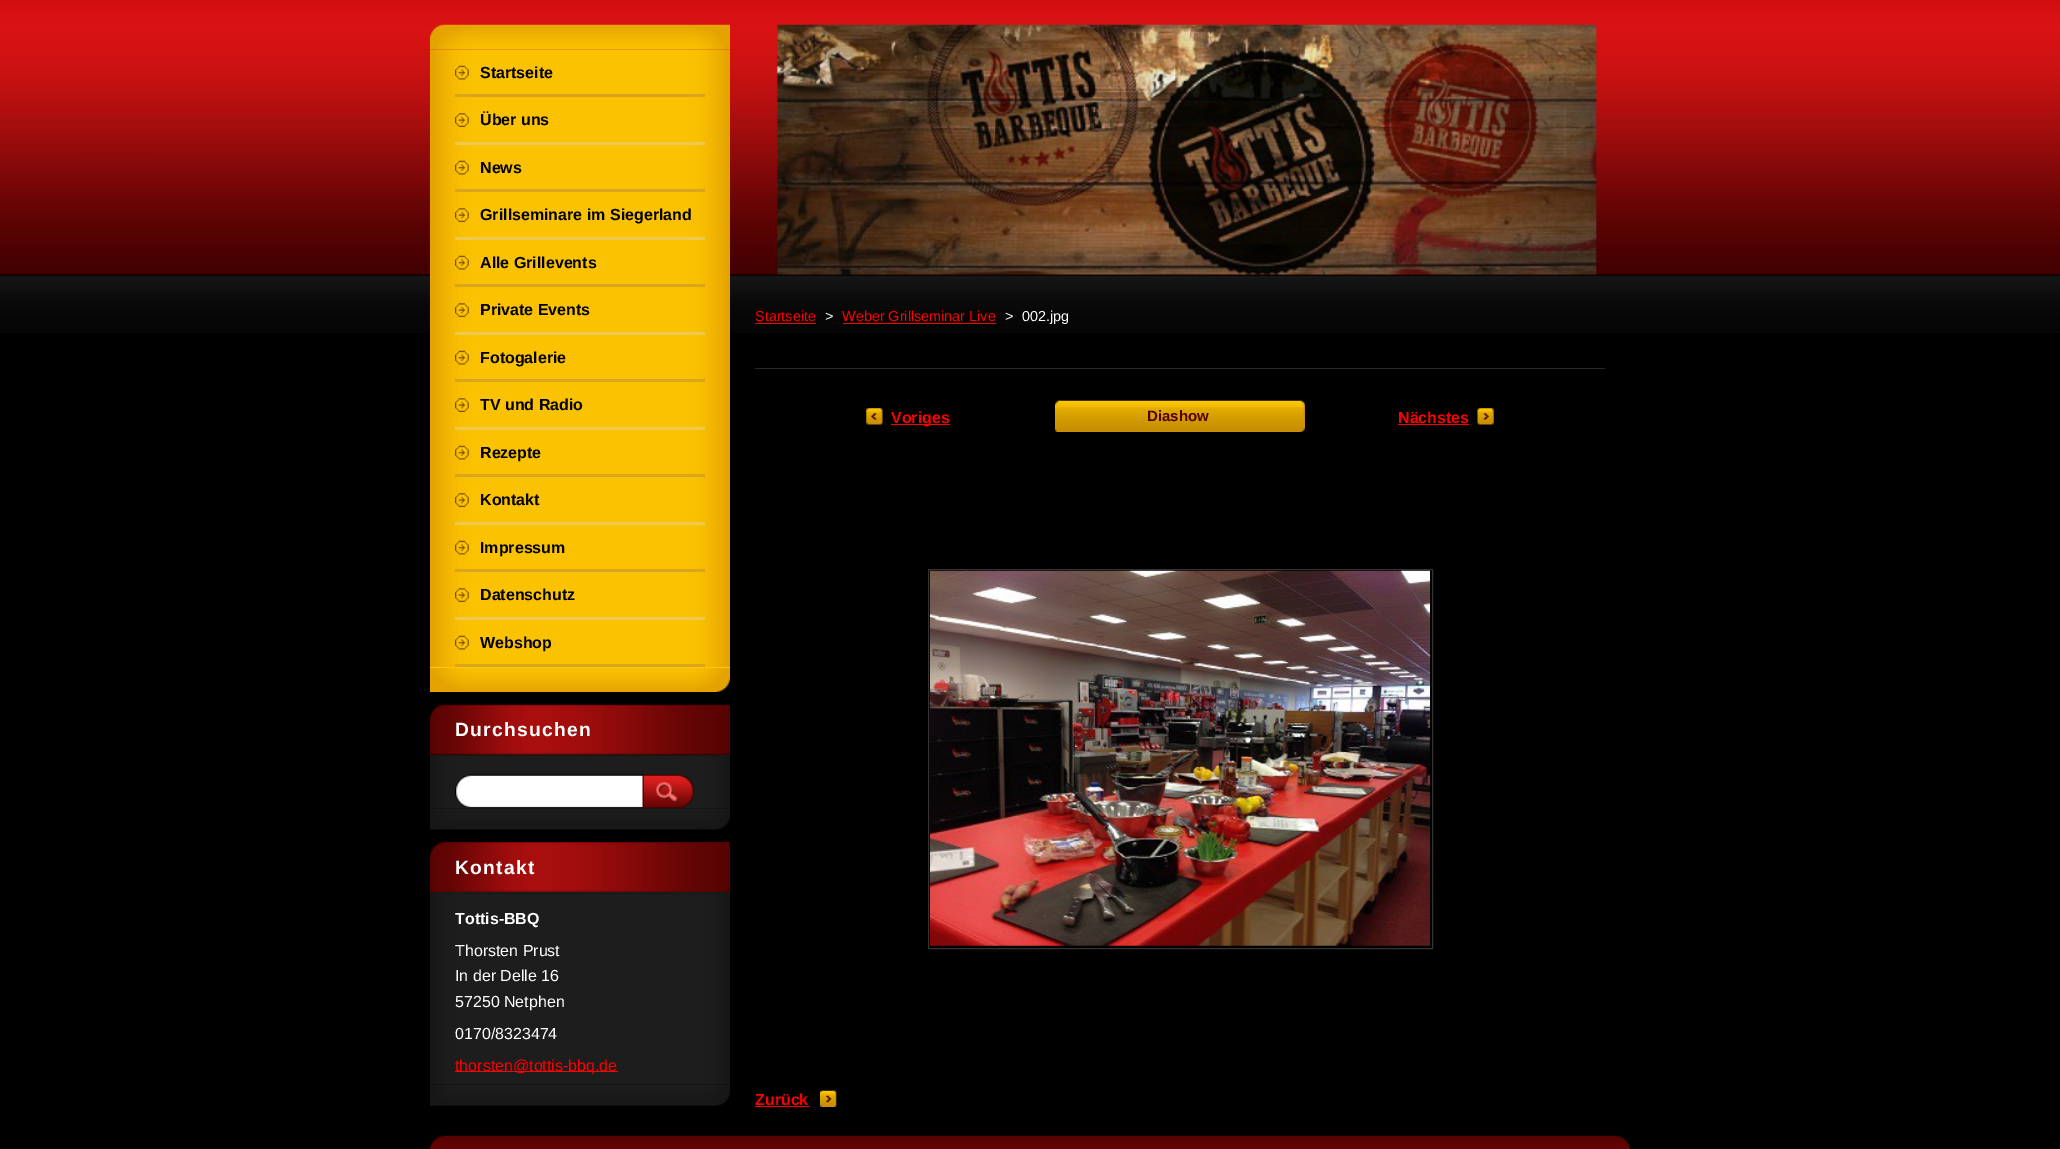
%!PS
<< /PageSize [2060 1149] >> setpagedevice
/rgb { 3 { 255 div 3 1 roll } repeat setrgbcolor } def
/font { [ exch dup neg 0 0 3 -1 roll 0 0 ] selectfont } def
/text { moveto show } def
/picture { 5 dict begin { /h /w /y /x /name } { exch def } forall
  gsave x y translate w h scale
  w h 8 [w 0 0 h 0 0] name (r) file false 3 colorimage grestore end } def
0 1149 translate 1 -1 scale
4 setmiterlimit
0 0 0 rgb
0 0 2060 1149 rectfill
(img_01.rgb) 0 0 2060 333 picture
(img_02.rgb) 430 24 300 26 picture
(img_03.rgb) 430 668 300 24 picture
255 200 0 rgb
430 667 300 1 rectfill
(img_04.rgb) 430 49 300 618 picture
218 165 28 rgb
455 94 250 3 rectfill
(img_05.rgb) 455 65 14 15 picture
239 200 79 rgb
455 142 250 3 rectfill
(img_06.rgb) 455 113 14 14 picture
218 165 28 rgb
455 189 250 3 rectfill
(img_05.rgb) 455 160 14 15 picture
239 200 79 rgb
455 237 250 3 rectfill
(img_06.rgb) 455 208 14 14 picture
218 165 28 rgb
455 284 250 3 rectfill
(img_05.rgb) 455 255 14 15 picture
239 200 79 rgb
455 332 250 3 rectfill
(img_06.rgb) 455 303 14 14 picture
218 165 28 rgb
455 379 250 3 rectfill
(img_05.rgb) 455 350 14 15 picture
239 200 79 rgb
455 427 250 3 rectfill
(img_06.rgb) 455 398 14 14 picture
218 165 28 rgb
455 474 250 3 rectfill
(img_07.rgb) 455 445 14 15 picture
239 200 79 rgb
455 522 250 3 rectfill
(img_06.rgb) 455 493 14 14 picture
218 165 28 rgb
455 569 250 3 rectfill
(img_05.rgb) 455 540 14 15 picture
239 200 79 rgb
455 617 250 3 rectfill
(img_06.rgb) 455 588 14 14 picture
218 165 28 rgb
455 664 250 3 rectfill
(img_07.rgb) 455 635 14 15 picture
(img_08.rgb) 430 808 300 22 picture
(img_10.rgb) 430 754 300 54 picture
(img_09.rgb) 430 704 300 51 picture
23 23 23 rgb
430 755 291 1 rectfill
(img_11.rgb) 455 774 189 33 picture
(img_12.rgb) 642 774 52 34 picture
(img_13.rgb) 430 1084 300 22 picture
(img_14.rgb) 430 842 300 50 picture
(img_15.rgb) 430 892 300 193 picture
430 893 291 1 rectfill
255 0 0 rgb
455 1071 163 1 rectfill
(img_16.rgb) 776 24 821 251 picture
755 323 61 1 rectfill
843 323 153 1 rectfill
42 42 42 rgb
755 368 850 1 rectfill
(img_17.rgb) 866 408 17 17 picture
255 0 0 rgb
891 424 59 1 rectfill
(img_18.rgb) 1055 400 5 32 picture
(img_19.rgb) 1058 400 247 32 picture
(img_20.rgb) 1477 408 17 17 picture
1398 424 71 1 rectfill
51 51 51 rgb
928.5 569.5 504 379 rectstroke
(img_21.rgb) 930 570 500 376 picture
(img_22.rgb) 820 1090 17 17 picture
255 0 0 rgb
755 1106 54 1 rectfill
(img_23.rgb) 430 1135 1200 14 picture
/LiberationSans-Bold 16 font
0 0 0 rgb
(Startseite) 480 78 text
(Über uns) 480 125 text
(News) 480 173 text
(Grillseminare im Siegerland) 480 220 text
(Alle Grillevents) 480 268 text
(Private Events) 480 315 text
(Fotogalerie) 480 363 text
(TV und Radio) 480 410 text
(Rezepte) 480 458 text
(Kontakt) 480 505 text
(Impressum) 480 553 text
(Datenschutz) 480 600 text
(Webshop) 480 648 text
/LiberationSans-Bold 19.25 font
255 255 255 rgb
455 736 moveto 1.25 0 (Durchsuchen) ashow
455 874 moveto 1.25 0 (Kontakt) ashow
/LiberationSans-Bold 16 font
(Tottis-BBQ) 455 924 text
/LiberationSans-Regular 16 font
(Thorsten Prust) 455 956 text
(In der Delle 16) 455 981 text
(57250 Netphen) 455 1007 text
(0170/8323474) 455 1039 text
255 0 0 rgb
(thorsten@tottis-bbq.de) 455 1071 text
/LiberationSans-Regular 14.4 font
(Startseite) 755 321 text
255 255 255 rgb
(>) 825 321 text
255 0 0 rgb
(Weber Grillseminar Live) 842 321 text
255 255 255 rgb
(>) 1005 321 text
(002.jpg) 1022 321 text
/LiberationSans-Bold 16 font
255 0 0 rgb
(Voriges) 891 423 text
/LiberationSans-Bold 15 font
85 0 0 rgb
(Diashow) 1147 421 text
/LiberationSans-Bold 16 font
255 0 0 rgb
(Nächstes) 1398 423 text
(Zurück) 755 1105 text
showpage
